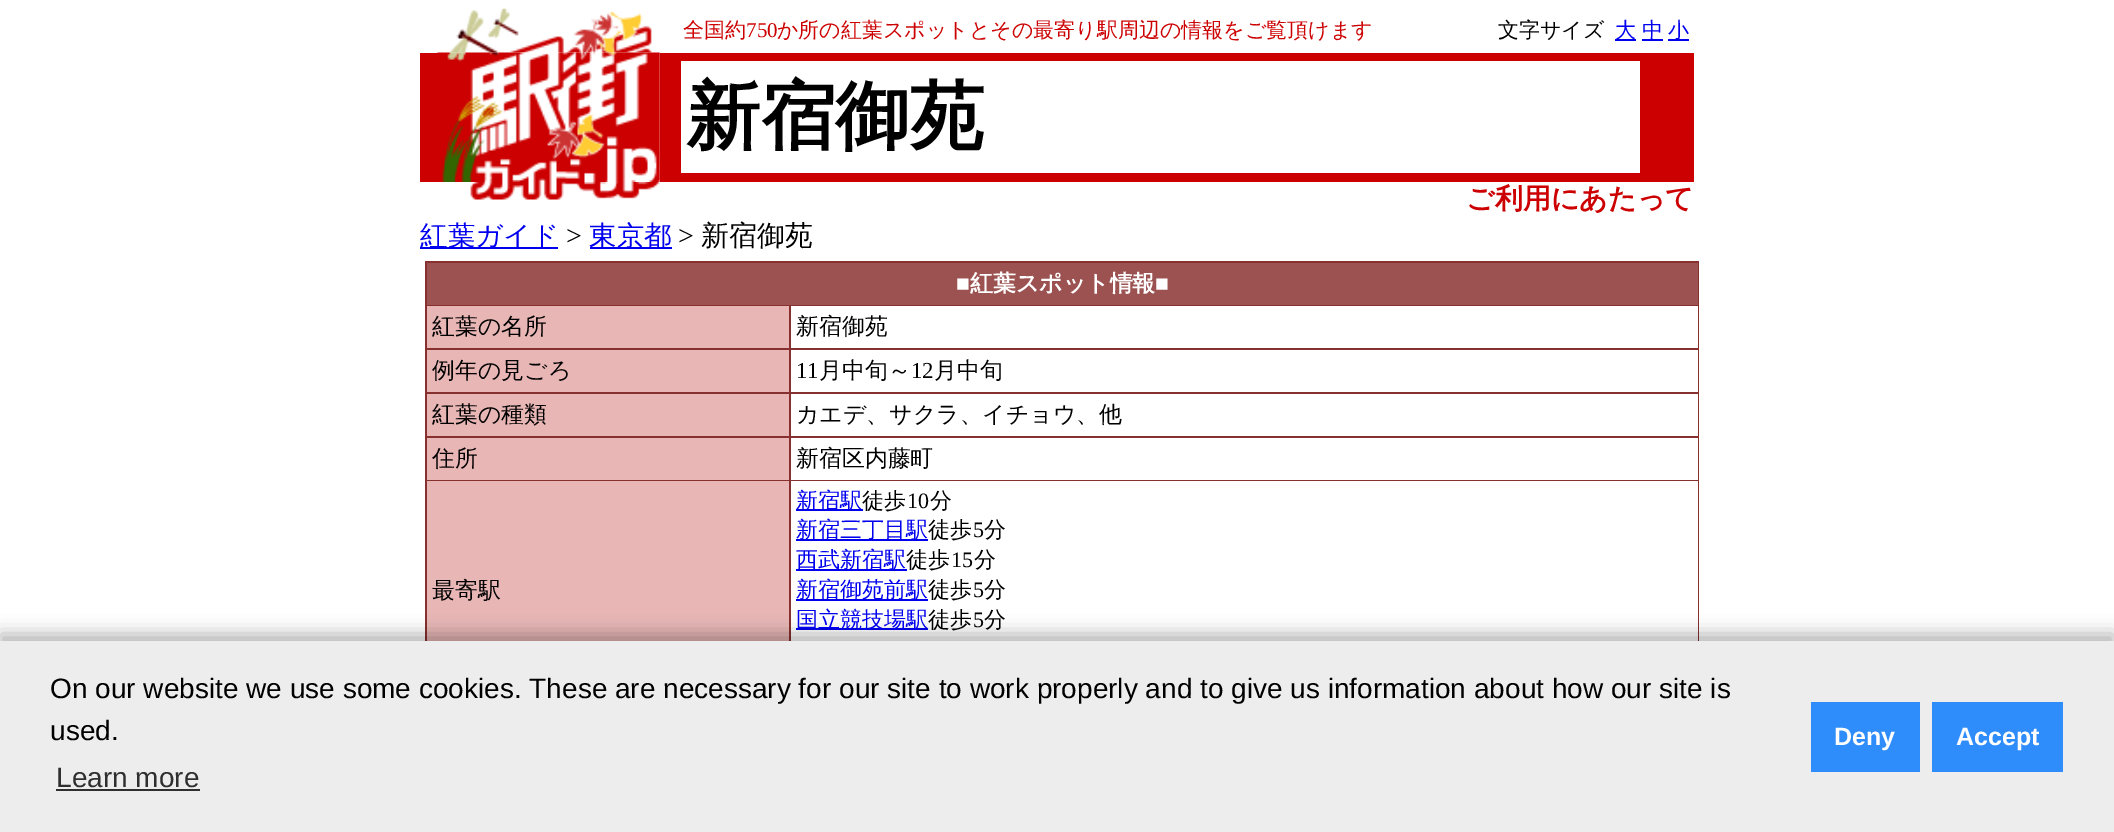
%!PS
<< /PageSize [2114 832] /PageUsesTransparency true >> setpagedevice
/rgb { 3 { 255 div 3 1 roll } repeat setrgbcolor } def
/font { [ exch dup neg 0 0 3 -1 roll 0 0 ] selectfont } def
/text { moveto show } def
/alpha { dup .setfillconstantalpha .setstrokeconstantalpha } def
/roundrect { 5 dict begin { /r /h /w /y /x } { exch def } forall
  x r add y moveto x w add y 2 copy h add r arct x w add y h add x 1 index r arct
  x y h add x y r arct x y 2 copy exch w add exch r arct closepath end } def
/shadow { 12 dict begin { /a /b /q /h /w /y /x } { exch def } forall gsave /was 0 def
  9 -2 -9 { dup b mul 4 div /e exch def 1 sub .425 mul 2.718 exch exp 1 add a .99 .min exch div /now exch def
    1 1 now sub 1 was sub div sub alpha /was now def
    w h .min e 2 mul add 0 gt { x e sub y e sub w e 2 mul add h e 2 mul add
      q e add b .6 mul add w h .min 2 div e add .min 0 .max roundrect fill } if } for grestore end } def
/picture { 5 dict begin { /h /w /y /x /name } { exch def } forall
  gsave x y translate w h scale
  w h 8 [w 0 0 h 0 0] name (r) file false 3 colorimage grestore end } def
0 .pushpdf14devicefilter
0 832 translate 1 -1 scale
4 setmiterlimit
255 255 255 rgb
0 0 2114 832 rectfill
(img_01.rgb) 449 8 203 45 picture
0 0 238 rgb
1615 39 21 2 rectfill
1642 39 21 2 rectfill
1668 39 21 2 rectfill
204 0 0 rgb
420 53 18 129 rectfill
(img_02.rgb) 437 52 223 130 picture
660 53 1034 129 rectfill
255 255 255 rgb
681 61 959 112 rectfill
(img_03.rgb) 470 182 190 18 picture
0 0 238 rgb
420 247 138 2 rectfill
590 247 82 2 rectfill
134 48 47 rgb
425 261 1274 380 rectfill
155 82 81 rgb
427 263 1271 42 rectfill
231 182 181 rgb
427 306 362 42 rectfill
255 255 255 rgb
791 306 907 42 rectfill
231 182 181 rgb
427 350 362 42 rectfill
255 255 255 rgb
791 350 907 42 rectfill
231 182 181 rgb
427 394 362 42 rectfill
255 255 255 rgb
791 394 907 42 rectfill
231 182 181 rgb
427 438 362 42 rectfill
255 255 255 rgb
791 438 907 42 rectfill
231 182 181 rgb
427 481 362 160 rectfill
255 255 255 rgb
791 481 907 160 rectfill
0 0 238 rgb
796 509 67 2 rectfill
796 539 132 2 rectfill
796 569 111 2 rectfill
796 599 132 2 rectfill
796 628 132 2 rectfill
0 0 0 rgb
0 634 2114 192 0 9 0.3 shadow
237 237 237 rgb
0 641 2114 191 rectfill
47 47 47 rgb
56 789 144 2 rectfill
47 140 251 rgb
1811 702 109 70 rectfill
1932 702 131 70 rectfill
/WenQuanYiZenHei-Medium 21 font
204 0 0 rgb
(全国約) 683 37 text
/LiberationSerif-Regular 21 font
(750) 746 37 text
/WenQuanYiZenHei-Medium 21 font
(か所の紅葉スポットとその最寄り駅周辺の情報をご覧頂けます) 777 37 text
0 0 0 rgb
(文字サイズ) 1498 37 text
0 0 238 rgb
(大) 1615 37 text
(中) 1642 37 text
(小) 1668 37 text
/WenQuanYiZenHei-Bold 74.5 font
0 0 0 rgb
(新宿御苑) 686 142 text
/WenQuanYiZenHei-Bold 28 font
204 0 0 rgb
(ご利用にあたって) 1466 208 text
/WenQuanYiZenHei-Medium 27.5 font
0 0 238 rgb
(紅葉ガイド) 420 245 text
/LiberationSerif-Regular 28 font
0 0 0 rgb
(>) 566 245 text
/WenQuanYiZenHei-Medium 27.5 font
0 0 238 rgb
(東京都) 589 245 text
/LiberationSerif-Regular 28 font
0 0 0 rgb
(>) 678 245 text
/WenQuanYiZenHei-Medium 28 font
(新宿御苑) 701 245 text
/LiberationSerif-Bold 22.9 font
255 255 255 rgb
(■) 956 291 text
/WenQuanYiZenHei-Bold 22.9 font
(紅葉スポット情報) 970 291 text
/LiberationSerif-Bold 22.9 font
(■) 1155 291 text
/WenQuanYiZenHei-Medium 22.9 font
0 0 0 rgb
(紅葉の名所) 432 334 text
(新宿御苑) 796 334 text
(例年の見ごろ) 432 378 text
/LiberationSerif-Regular 22.9 font
(11) 796 378 text
/WenQuanYiZenHei-Medium 22.9 font
(月中旬～) 819 378 text
/LiberationSerif-Regular 22.9 font
(12) 911 378 text
/WenQuanYiZenHei-Medium 22.9 font
(月中旬) 934 378 text
(紅葉の種類) 432 422 text
(カエデ、サクラ、イチョウ、他) 796 422 text
(住所) 432 466 text
(新宿区内藤町) 796 466 text
(最寄駅) 432 598 text
/WenQuanYiZenHei-Medium 22 font
0 0 238 rgb
(新宿駅) 796 508 text
0 0 0 rgb
(徒歩) 862 508 text
/LiberationSerif-Regular 22 font
(10) 907 508 text
/WenQuanYiZenHei-Medium 22 font
(分) 930 508 text
0 0 238 rgb
(新宿三丁目駅) 796 537 text
0 0 0 rgb
(徒歩) 928 537 text
/LiberationSerif-Regular 22 font
(5) 973 537 text
/WenQuanYiZenHei-Medium 22 font
(分) 984 537 text
0 0 238 rgb
(西武新宿駅) 796 567 text
0 0 0 rgb
(徒歩) 906 567 text
/LiberationSerif-Regular 22 font
(15) 951 567 text
/WenQuanYiZenHei-Medium 22 font
(分) 974 567 text
0 0 238 rgb
(新宿御苑前駅) 796 597 text
0 0 0 rgb
(徒歩) 928 597 text
/LiberationSerif-Regular 22 font
(5) 973 597 text
/WenQuanYiZenHei-Medium 22 font
(分) 984 597 text
0 0 238 rgb
(国立競技場駅) 796 627 text
0 0 0 rgb
(徒歩) 928 627 text
/LiberationSerif-Regular 22 font
(5) 973 627 text
/WenQuanYiZenHei-Medium 22 font
(分) 984 627 text
/LiberationSans-Regular 28 font
(On our website we use some cookies. These are necessary for our site to work properly and to give us information about how our site is) 50 698 text
(used.) 50 740 text
47 47 47 rgb
(Learn more) 56 787 text
/LiberationSans-Bold 25 font
255 255 255 rgb
(Deny) 1834 745 text
(Accept) 1956 745 text
.poppdf14devicefilter showpage
